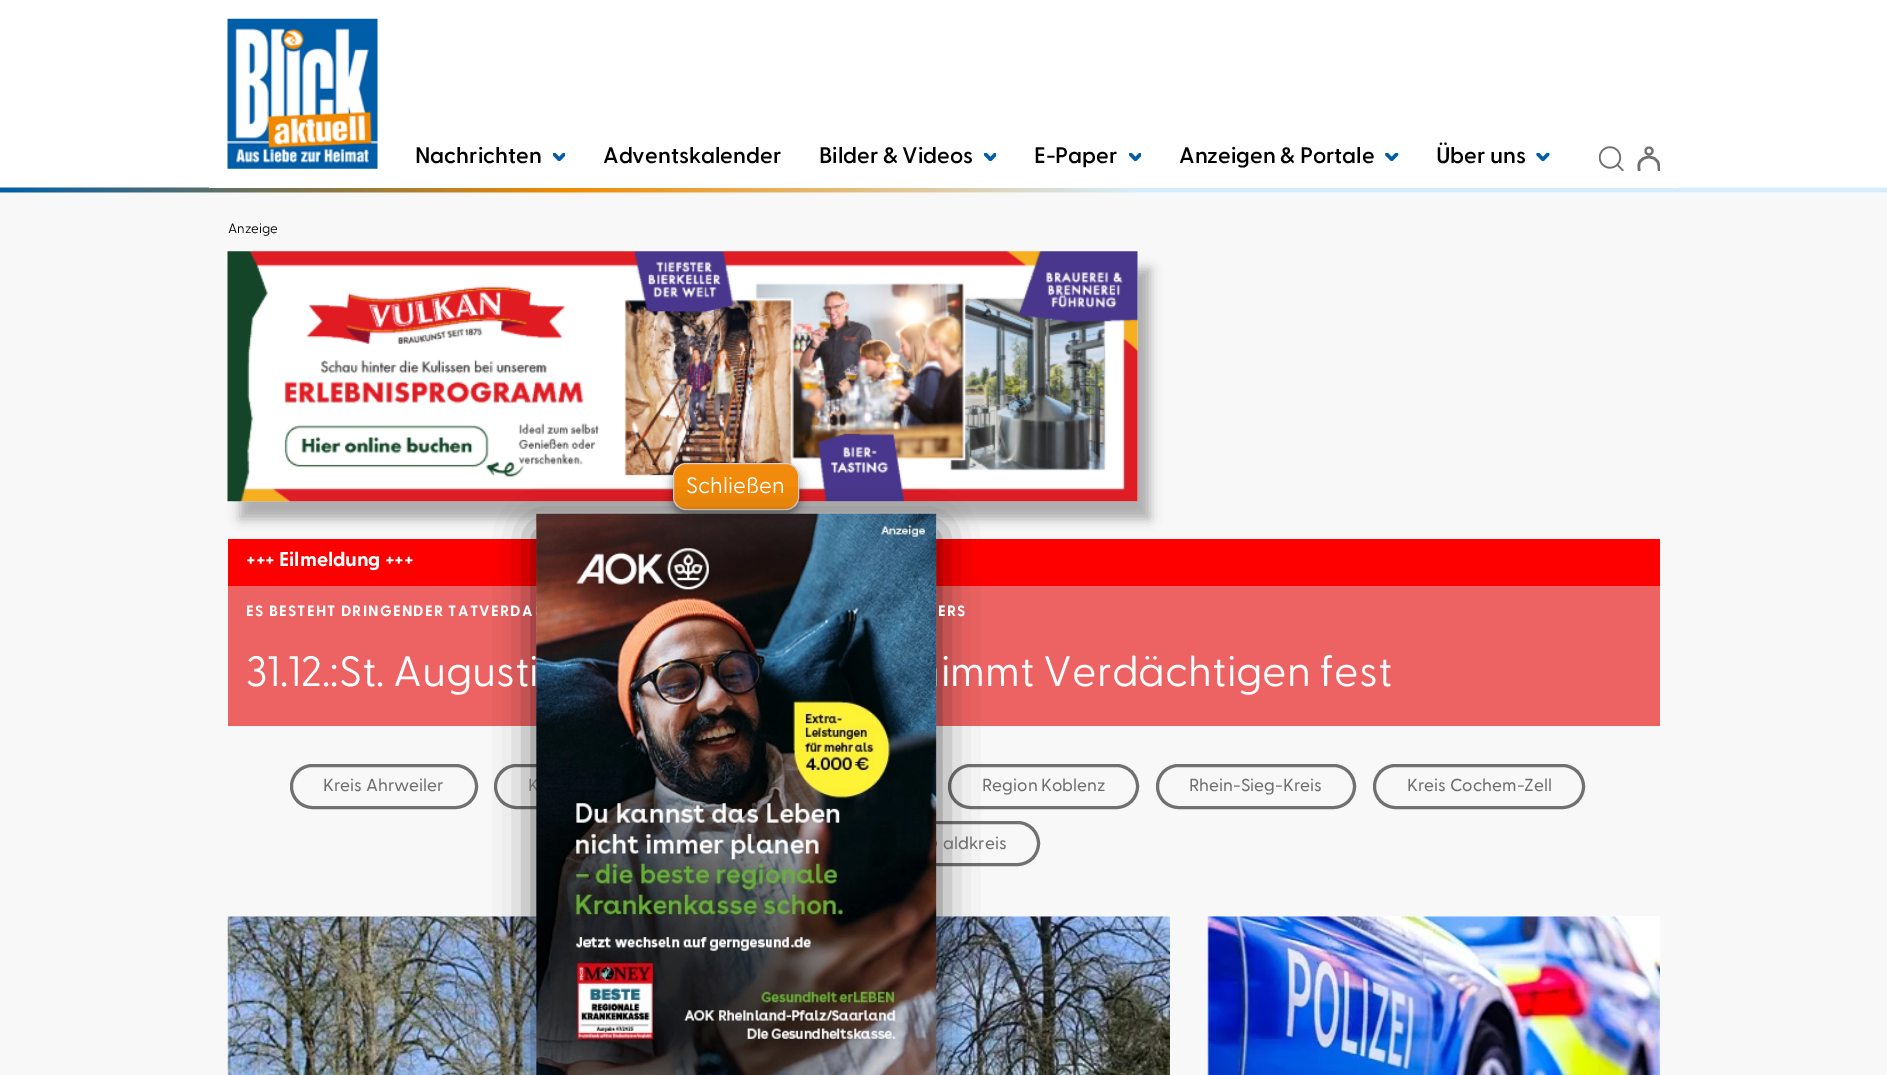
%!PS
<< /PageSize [1887 1075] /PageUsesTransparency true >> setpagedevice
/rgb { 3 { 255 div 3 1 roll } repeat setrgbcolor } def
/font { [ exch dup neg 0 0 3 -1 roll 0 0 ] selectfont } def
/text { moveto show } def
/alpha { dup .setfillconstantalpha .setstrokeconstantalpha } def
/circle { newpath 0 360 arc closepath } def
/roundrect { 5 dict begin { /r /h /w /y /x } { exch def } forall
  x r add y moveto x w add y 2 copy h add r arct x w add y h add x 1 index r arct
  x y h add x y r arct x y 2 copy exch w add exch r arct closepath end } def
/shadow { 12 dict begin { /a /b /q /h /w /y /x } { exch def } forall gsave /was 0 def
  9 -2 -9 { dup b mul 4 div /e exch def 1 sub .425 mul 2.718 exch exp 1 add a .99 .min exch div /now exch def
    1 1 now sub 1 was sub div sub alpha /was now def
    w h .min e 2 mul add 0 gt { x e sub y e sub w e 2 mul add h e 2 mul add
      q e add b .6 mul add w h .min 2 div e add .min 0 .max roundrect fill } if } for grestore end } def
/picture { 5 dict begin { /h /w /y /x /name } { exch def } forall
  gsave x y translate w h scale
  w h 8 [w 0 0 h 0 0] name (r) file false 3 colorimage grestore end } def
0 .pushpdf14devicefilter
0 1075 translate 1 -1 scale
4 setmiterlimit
248 248 248 rgb
0 0 1887 1075 rectfill
255 255 255 rgb
0 0 1887 193 rectfill
(img_01.rgb) 0 187 1887 6 picture
209 187 1470 1 rectfill
(img_02.rgb) 227 18 151 151 picture
(img_03.rgb) 553 153 12 8 picture
(img_04.rgb) 984 153 12 8 picture
(img_04.rgb) 1129 153 12 8 picture
(img_05.rgb) 1385 153 14 8 picture
(img_06.rgb) 1536 153 14 8 picture
(img_07.rgb) 1599 146 25 25 picture
gsave
1636 146 24 25 rectclip
112 112 112 rgb
2.6 setlinewidth
1 setlinecap
1659 170 moveto 0 -2.5 0 -5 -1 -7.5 rcurveto -3.5 -7.5 -14.5 -7.5 -18.5 0 rcurveto -1 2.5 -0.5 5 -0.5 7.5 rcurveto stroke
grestore
112 112 112 rgb
2.1 setlinewidth
1649 151 3.5 circle stroke
0 0 0 rgb
240 269 910 250 0 6 0.3 shadow
(img_08.rgb) 227 251 911 251 picture
673 468 126 47 13 5 0.5 shadow
242 138 11 rgb
673.5 463.5 125 46 12.5 roundrect gsave fill grestore
210 210 210 rgb
1 setlinewidth
stroke
255 0 0 rgb
228 539 1432 47 rectfill
237 99 99 rgb
228 586 1432 140 rectfill
112 112 112 rgb
3 setlinewidth
291.5 765.5 185 42 21 roundrect stroke
495.5 765.5 236 42 21 roundrect stroke
949.5 765.5 188 42 21 roundrect stroke
836.5 822.5 202 42 21 roundrect stroke
255 255 255 rgb
228 916 942 1 rectfill
(img_10.rgb) 227 916 943 159 picture
0 0 0 rgb
535 530 403 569 0 19 0.6 shadow
112 112 112 rgb
1157.5 765.5 197 42 21 roundrect stroke
1374.5 765.5 209 42 21 roundrect stroke
255 255 255 rgb
1208 916 452 1 rectfill
(img_11.rgb) 1207 916 453 159 picture
/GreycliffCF-SemiBold 22.5 font
0 0 0 rgb
(Nachrichten) 415 163 text
(Adventskalender) 603 163 text
(Bilder & Videos) 819 163 text
(E-Paper) 1034 163 text
(Anzeigen & Portale) 1179 163 text
(Über uns) 1436 163 text
/GreycliffCF-Regular 13.5 font
(Anzeige) 228 233 text
/GreycliffCF-Regular 22.5 font
255 255 255 rgb
(Schließen) 686 493 text
/GreycliffCF-Bold 20 font
(+++ Eilmeldung +++) 246 566 text
/GreycliffCF-Bold 15 font
246 616 moveto 1.25 0 (ES BESTEHT DRINGENDER TATVERDA) ashow
938 616 moveto 1.25 0 (ERS) ashow
/GreycliffCF-Regular 42.5 font
(31.12.:St. Augusti) 246 686 text
(immt Verdächtigen fest) 941 686 text
/GreycliffCF-Medium 17.5 font
112 112 112 rgb
(Kreis Ahrweiler) 323 791 text
(K) 528 791 text
(img_09.rgb) 536 513 401 562 picture
(Region Koblenz) 982 791 text
(Rhein-Sieg-Kreis) 1189 791 text
(Kreis Cochem-Zell) 1407 791 text
(aldkreis) 943 849 text
.poppdf14devicefilter showpage
